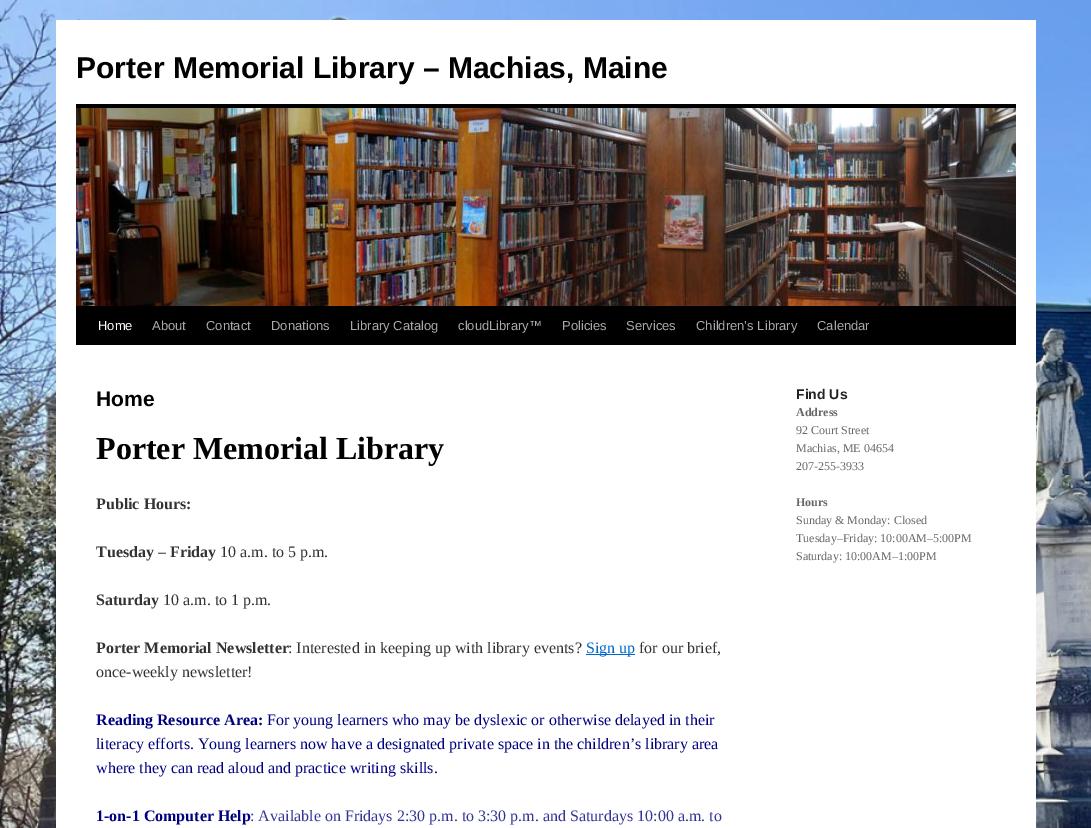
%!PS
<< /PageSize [1091 828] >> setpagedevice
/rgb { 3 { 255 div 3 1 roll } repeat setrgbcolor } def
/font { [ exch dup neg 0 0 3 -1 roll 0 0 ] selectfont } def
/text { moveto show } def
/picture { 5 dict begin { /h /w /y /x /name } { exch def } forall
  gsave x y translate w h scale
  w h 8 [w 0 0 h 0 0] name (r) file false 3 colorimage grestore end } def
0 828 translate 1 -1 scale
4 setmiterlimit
255 255 255 rgb
0 0 1091 828 rectfill
(img_01.rgb) 0 0 1091 828 picture
56 20 980 808 rectfill
0 0 0 rgb
76 104 940 4 rectfill
76 306 940 39 rectfill
(img_02.rgb) 76 108 940 198 picture
0 102 204 rgb
586 654 49 1 rectfill
/LiberationSans-Bold 30 font
0 0 0 rgb
(Porter Memorial Library – Machias, Maine) 76 78 text
/LiberationSans-Regular 13 font
255 255 255 rgb
(Home) 98 330 text
170 170 170 rgb
(About) 152 330 text
(Contact) 206 330 text
(Donations) 271 330 text
(Library Catalog) 350 330 text
(cloudLibrary™) 458 330 text
(Policies) 562 330 text
(Services) 626 330 text
(Children’s Library) 696 330 text
(Calendar) 817 330 text
/LiberationSans-Bold 21 font
0 0 0 rgb
(Home) 96 406 text
/LiberationSerif-Bold 32 font
(Porter Memorial Library) 96 459 text
/LiberationSerif-Bold 16 font
51 51 51 rgb
(Public Hours:) 96 509 text
(Tuesday – Friday) 96 557 text
/LiberationSerif-Regular 16 font
(10 a.m. to 5 p.m.) 220 557 text
/LiberationSerif-Bold 16 font
(Saturday) 96 605 text
/LiberationSerif-Regular 16 font
(10 a.m. to 1 p.m.) 163 605 text
/LiberationSerif-Bold 16 font
(Porter Memorial Newsletter) 96 653 text
/LiberationSerif-Regular 16 font
(: Interested in keeping up with library events?) 288 653 text
0 102 204 rgb
(Sign up) 586 653 text
51 51 51 rgb
(for our brief,) 639 653 text
(once-weekly newsletter!) 96 677 text
/LiberationSerif-Bold 16 font
0 0 128 rgb
(Reading Resource Area:) 96 725 text
/LiberationSerif-Regular 16 font
(For young learners who may be dyslexic or otherwise delayed in their) 267 725 text
(literacy efforts. Young learners now have a designated private space in the children’s library area) 96 749 text
(where they can read aloud and practice writing skills.) 96 773 text
/LiberationSerif-Bold 16 font
(1-on-1 Computer Help) 96 821 text
/LiberationSerif-Regular 16 font
51 51 153 rgb
(: Available on Fridays 2:30 p.m. to 3:30 p.m. and Saturdays 10:00 a.m. to) 250 821 text
/LiberationSans-Bold 14 font
34 34 34 rgb
(Find Us) 796 399 text
/LiberationSerif-Bold 12 font
102 102 102 rgb
(Address) 796 416 text
/LiberationSerif-Regular 12 font
(92 Court Street) 796 434 text
(Machias, ME 04654) 796 452 text
(207-255-3933) 796 470 text
/LiberationSerif-Bold 12 font
(Hours) 796 506 text
/LiberationSerif-Regular 12 font
(Sunday & Monday: Closed) 796 524 text
(Tuesday–Friday: 10:00AM–5:00PM) 796 542 text
(Saturday: 10:00AM–1:00PM) 796 560 text
showpage
